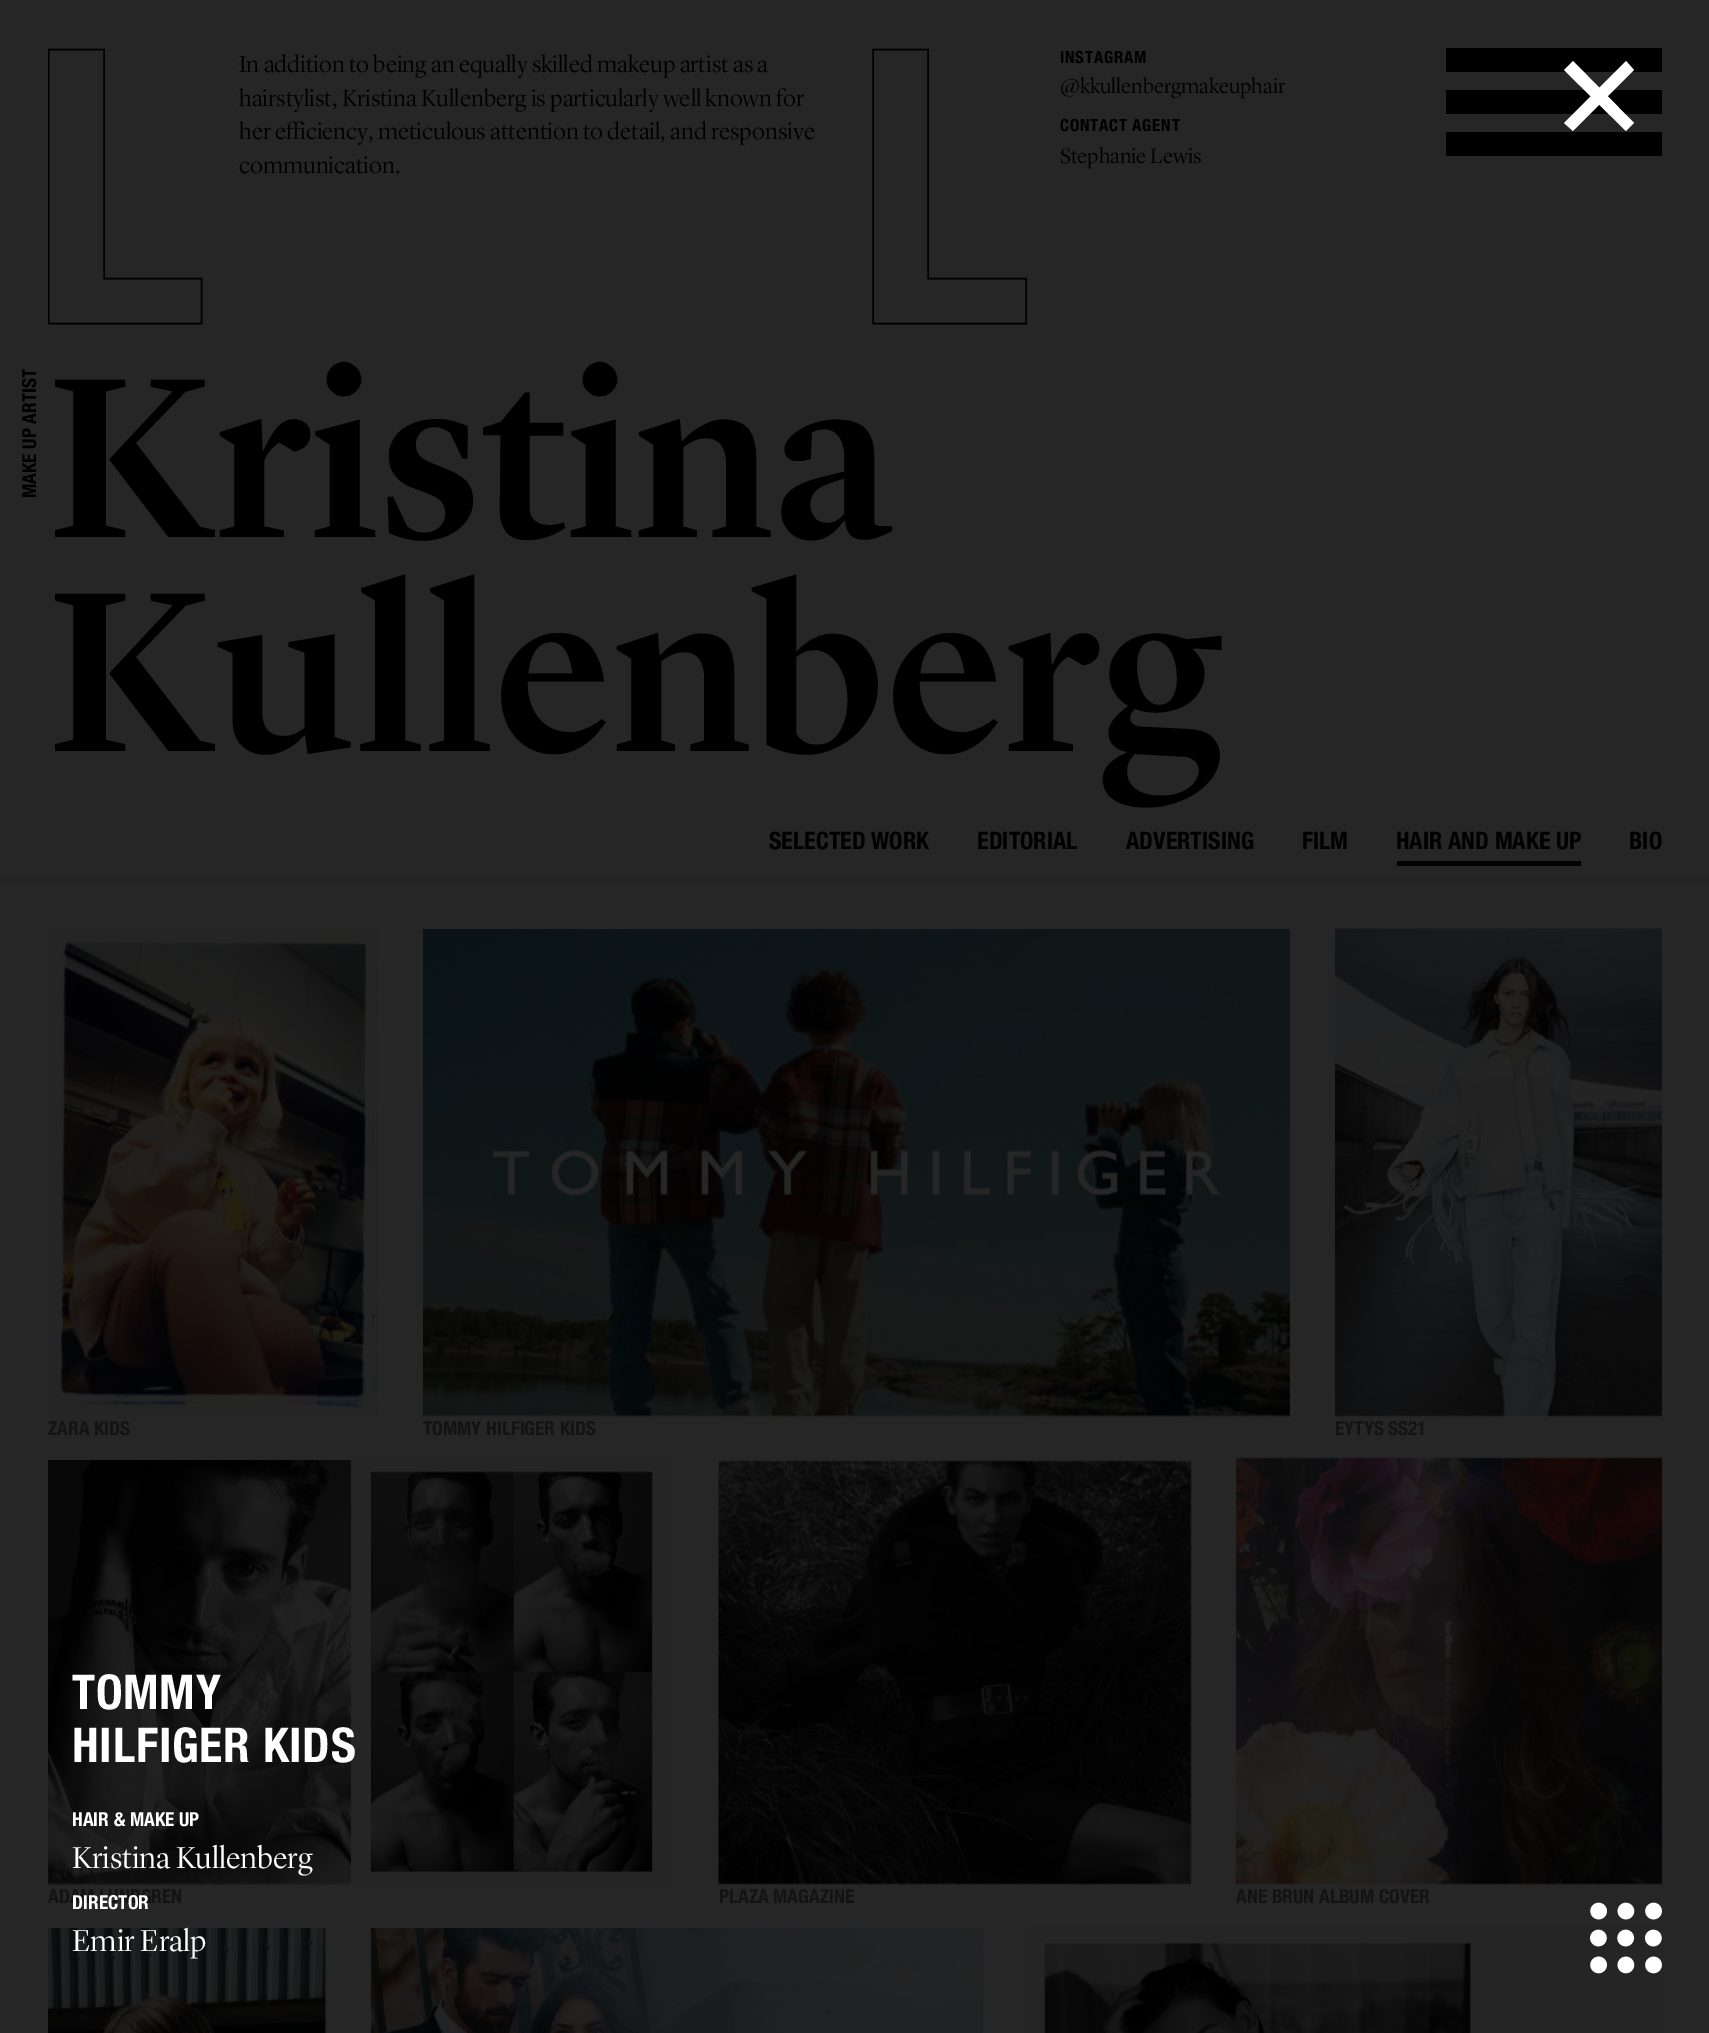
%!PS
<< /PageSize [1709 2033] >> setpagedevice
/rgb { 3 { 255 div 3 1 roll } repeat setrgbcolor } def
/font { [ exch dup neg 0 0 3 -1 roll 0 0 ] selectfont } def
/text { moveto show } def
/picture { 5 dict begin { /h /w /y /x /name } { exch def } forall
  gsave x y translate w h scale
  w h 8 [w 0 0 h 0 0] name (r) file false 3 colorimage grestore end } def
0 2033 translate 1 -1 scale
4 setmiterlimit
38 38 38 rgb
0 0 1709 2033 rectfill
gsave
48 48 1614 279 rectclip
0 0 0 rgb
1.4 setlinewidth
201.5 323.5 moveto 0 -45 rlineto -97.5 0 rlineto 0 -229 rlineto -55.5 0 rlineto 0 274 rlineto closepath stroke
grestore
0 0 0 rgb
1.4 setlinewidth
1026 323.5 moveto 0 -45 rlineto -98 0 rlineto 0 -229 rlineto -55 0 rlineto 0 274 rlineto closepath stroke
1446 48 216 24 rectfill
1446 90 216 24 rectfill
1446 132 216 24 rectfill
33 33 33 rgb
0 879 1709 2 rectfill
0 0 0 rgb
1397 861 184 5 rectfill
(img_01.rgb) 48 928 330 489 picture
(img_02.rgb) 423 929 867 488 picture
(img_03.rgb) 1335 928 327 489 picture
(img_04.rgb) 48 1460 626 425 picture
(img_05.rgb) 718 1460 474 425 picture
(img_06.rgb) 1236 1457 426 428 picture
(img_07.rgb) 48 1928 278 105 picture
(img_08.rgb) 371 1928 612 105 picture
(img_09.rgb) 1028 1926 634 107 picture
255 255 255 rgb
1564 123 moveto 62 -62 rlineto 8 9 rlineto -61 61 rlineto closepath eofill
1573 61 moveto 61 62 rlineto -8 8 rlineto -62 -61 rlineto closepath eofill
(img_10.rgb) 1590 1902 72 72 picture
/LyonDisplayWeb-Light 24 font
0 0 0 rgb
(In addition to being an equally skilled makeup artist as a) 239 72 text
(hairstylist, Kristina Kullenberg is particularly well known for) 239 106 text
(her efficiency, meticulous attention to detail, and responsive) 239 139 text
(communication.) 239 173 text
/HelveticaNeue-Bold 16.75 font
1060 63 moveto 0.75 0 (INSTAGRAM) ashow
/LyonDisplayWeb-Light 21.6 font
(@kkullenbergmakeuphair) 1060 93 text
/HelveticaNeue-Bold 16.75 font
1060 131 moveto 0.75 0 (CONTACT AGENT) ashow
/LyonDisplayWeb-Light 21.6 font
(Stephanie Lewis) 1060 163 text
/HelveticaNeue-Bold 19.25 font
gsave 36 498 translate -90 rotate 0 0 moveto (MAKE UP ARTIST) show grestore
/LyonDisplayWeb-Medium 237.5 font
(Kristina) 48 537 text
(Kullenberg) 48 751 text
/HelveticaNeue-Bold 24 font
(SELECTED WORK) 769 849 text
(EDITORIAL) 977 849 text
(ADVERTISING) 1126 849 text
(FILM) 1302 849 text
(HAIR AND MAKE UP) 1396 849 text
(BIO) 1629 849 text
/HelveticaNeue-Bold 19.25 font
19 19 19 rgb
(ZARA KIDS) 48 1435 text
(TOMMY HILFIGER KIDS) 423 1435 text
(EYTYS SS21) 1335 1435 text
(ADAM LUNDGREN) 48 1903 text
(PLAZA MAGAZINE) 719 1903 text
(ANE BRUN ALBUM COVER) 1236 1903 text
/HelveticaNeue-Bold 48 font
255 255 255 rgb
72 1709 moveto 0.75 0 (TOMMY) ashow
72 1762 moveto 0.75 0 (HILFIGER KIDS) ashow
/HelveticaNeue-Bold 19.25 font
(HAIR & MAKE UP) 72 1826 text
/LyonDisplayWeb-Light 31.25 font
(Kristina Kullenberg) 72 1868 text
/HelveticaNeue-Bold 19.25 font
(DIRECTOR) 72 1909 text
/LyonDisplayWeb-Light 31.25 font
(Emir Eralp) 72 1951 text
showpage
